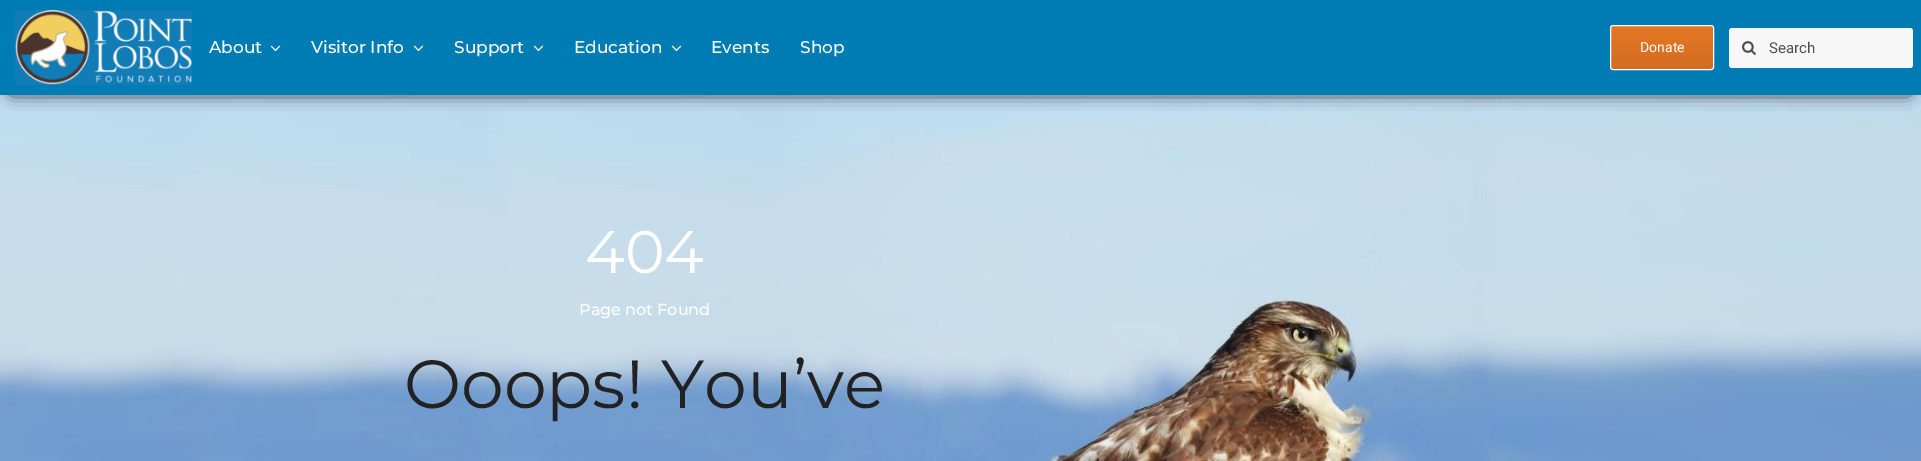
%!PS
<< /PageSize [1921 461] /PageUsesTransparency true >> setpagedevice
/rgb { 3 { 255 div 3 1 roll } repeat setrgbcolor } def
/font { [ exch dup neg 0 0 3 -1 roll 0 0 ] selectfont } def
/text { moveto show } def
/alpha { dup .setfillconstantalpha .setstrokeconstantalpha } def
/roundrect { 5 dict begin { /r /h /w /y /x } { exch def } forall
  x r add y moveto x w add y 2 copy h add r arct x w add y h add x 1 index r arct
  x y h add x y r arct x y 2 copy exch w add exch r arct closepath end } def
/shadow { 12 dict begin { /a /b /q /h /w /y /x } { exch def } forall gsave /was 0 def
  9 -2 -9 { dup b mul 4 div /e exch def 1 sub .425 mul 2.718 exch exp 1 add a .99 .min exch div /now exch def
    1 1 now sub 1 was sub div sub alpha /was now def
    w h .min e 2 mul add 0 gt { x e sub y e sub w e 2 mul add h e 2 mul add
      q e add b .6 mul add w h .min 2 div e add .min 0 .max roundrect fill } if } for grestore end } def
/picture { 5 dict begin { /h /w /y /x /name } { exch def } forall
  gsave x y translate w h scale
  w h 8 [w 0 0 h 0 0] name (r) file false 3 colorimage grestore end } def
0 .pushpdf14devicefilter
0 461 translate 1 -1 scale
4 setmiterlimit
255 255 255 rgb
0 0 1921 461 rectfill
(img_04.rgb) 0 95 1921 366 picture
0 0 0 rgb
12 22 1897 71 0 8 1 shadow
0 124 181 rgb
0 0 1921 95 rectfill
(img_01.rgb) 15 10 177 75 picture
(img_02.rgb) 270 45 11 7 picture
(img_02.rgb) 413 45 11 7 picture
(img_02.rgb) 533 45 11 7 picture
(img_02.rgb) 671 45 11 7 picture
gsave
1610 25 104 45 3 roundrect clip newpath
gsave 1610 26 moveto 104 0 rlineto 0 43 rlineto -104 0 rlineto closepath clip newpath
<< /ShadingType 2 /ColorSpace /DeviceRGB /Coords [1662 26 1662 69] /Extend [true true] /Function << /FunctionType 2 /Domain [0 1] /C0 [0.898 0.471 0.141] /C1 [0.824 0.424 0.133] /N 1 >> >> shfill grestore
grestore
255 255 255 rgb
1610.5 25.5 103 44 2.5 roundrect stroke
247 247 247 rgb
1729 28 184 40 3 roundrect fill
(img_03.rgb) 1742 41 14 14 picture
/Montserrat-Medium 17 font
255 255 255 rgb
(About) 209 53 text
(Visitor Info) 311 53 text
(Support) 454 53 text
(Education) 574 53 text
(Events) 711 53 text
(Shop) 800 53 text
/Roboto-Regular 14 font
(Donate) 1640 52 text
/Roboto-Regular 15 font
79 79 79 rgb
(Search) 1769 53 text
/Montserrat-Regular 60 font
255 255 255 rgb
(404) 585 273 text
/Montserrat-Medium 16 font
(Page not Found) 579 315 text
/Montserrat-Regular 68 font
34 34 34 rgb
(Ooops! You’ve) 404 408 text
.poppdf14devicefilter showpage
